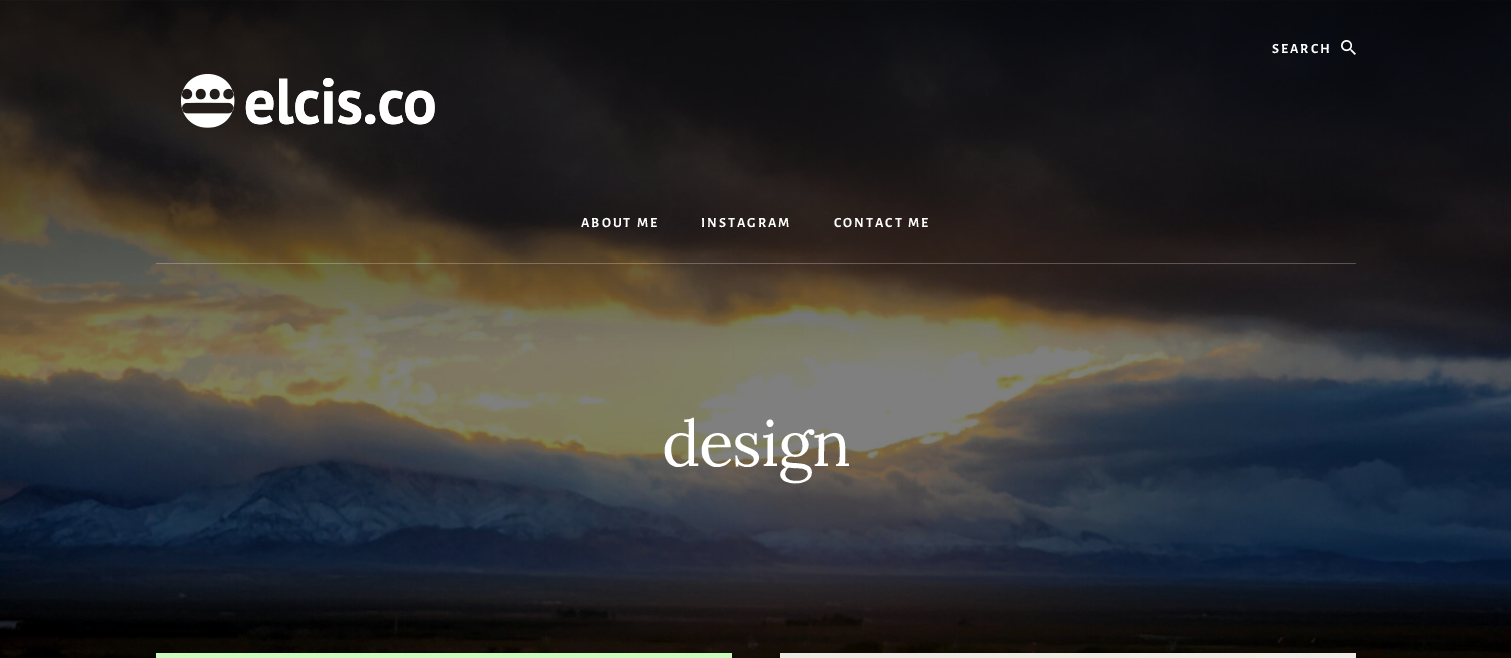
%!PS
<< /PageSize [1511 658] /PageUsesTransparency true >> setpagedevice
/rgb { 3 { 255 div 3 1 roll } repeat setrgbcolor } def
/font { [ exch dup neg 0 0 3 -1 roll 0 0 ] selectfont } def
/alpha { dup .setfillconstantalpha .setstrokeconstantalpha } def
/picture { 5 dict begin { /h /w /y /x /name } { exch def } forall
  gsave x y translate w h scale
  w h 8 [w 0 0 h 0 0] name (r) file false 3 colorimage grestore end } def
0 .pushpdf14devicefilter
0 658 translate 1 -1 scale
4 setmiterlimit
255 255 255 rgb
0 0 1511 658 rectfill
(img_01.rgb) 0 0 1511 658 picture
(img_02.rgb) 1341 40 15 15 picture
(img_03.rgb) 181 74 254 54 picture
0.25 alpha
156 263 1200 1 rectfill
1 alpha
202 252 187 rgb
156 653 576 5 rectfill
(img_04.rgb) 780 653 576 5 picture
/AlegreyaSans-Bold 14 font
255 255 255 rgb
1272 53 moveto 2 0 (SEARCH) ashow
581 227 moveto 2 0 (ABOUT ME) ashow
701 227 moveto 2 0 (INSTAGRAM) ashow
834 227 moveto 2 0 (CONTACT ME) ashow
/Lora-Regular 64 font
662 466 moveto -1.25 0 (design) ashow
.poppdf14devicefilter showpage
